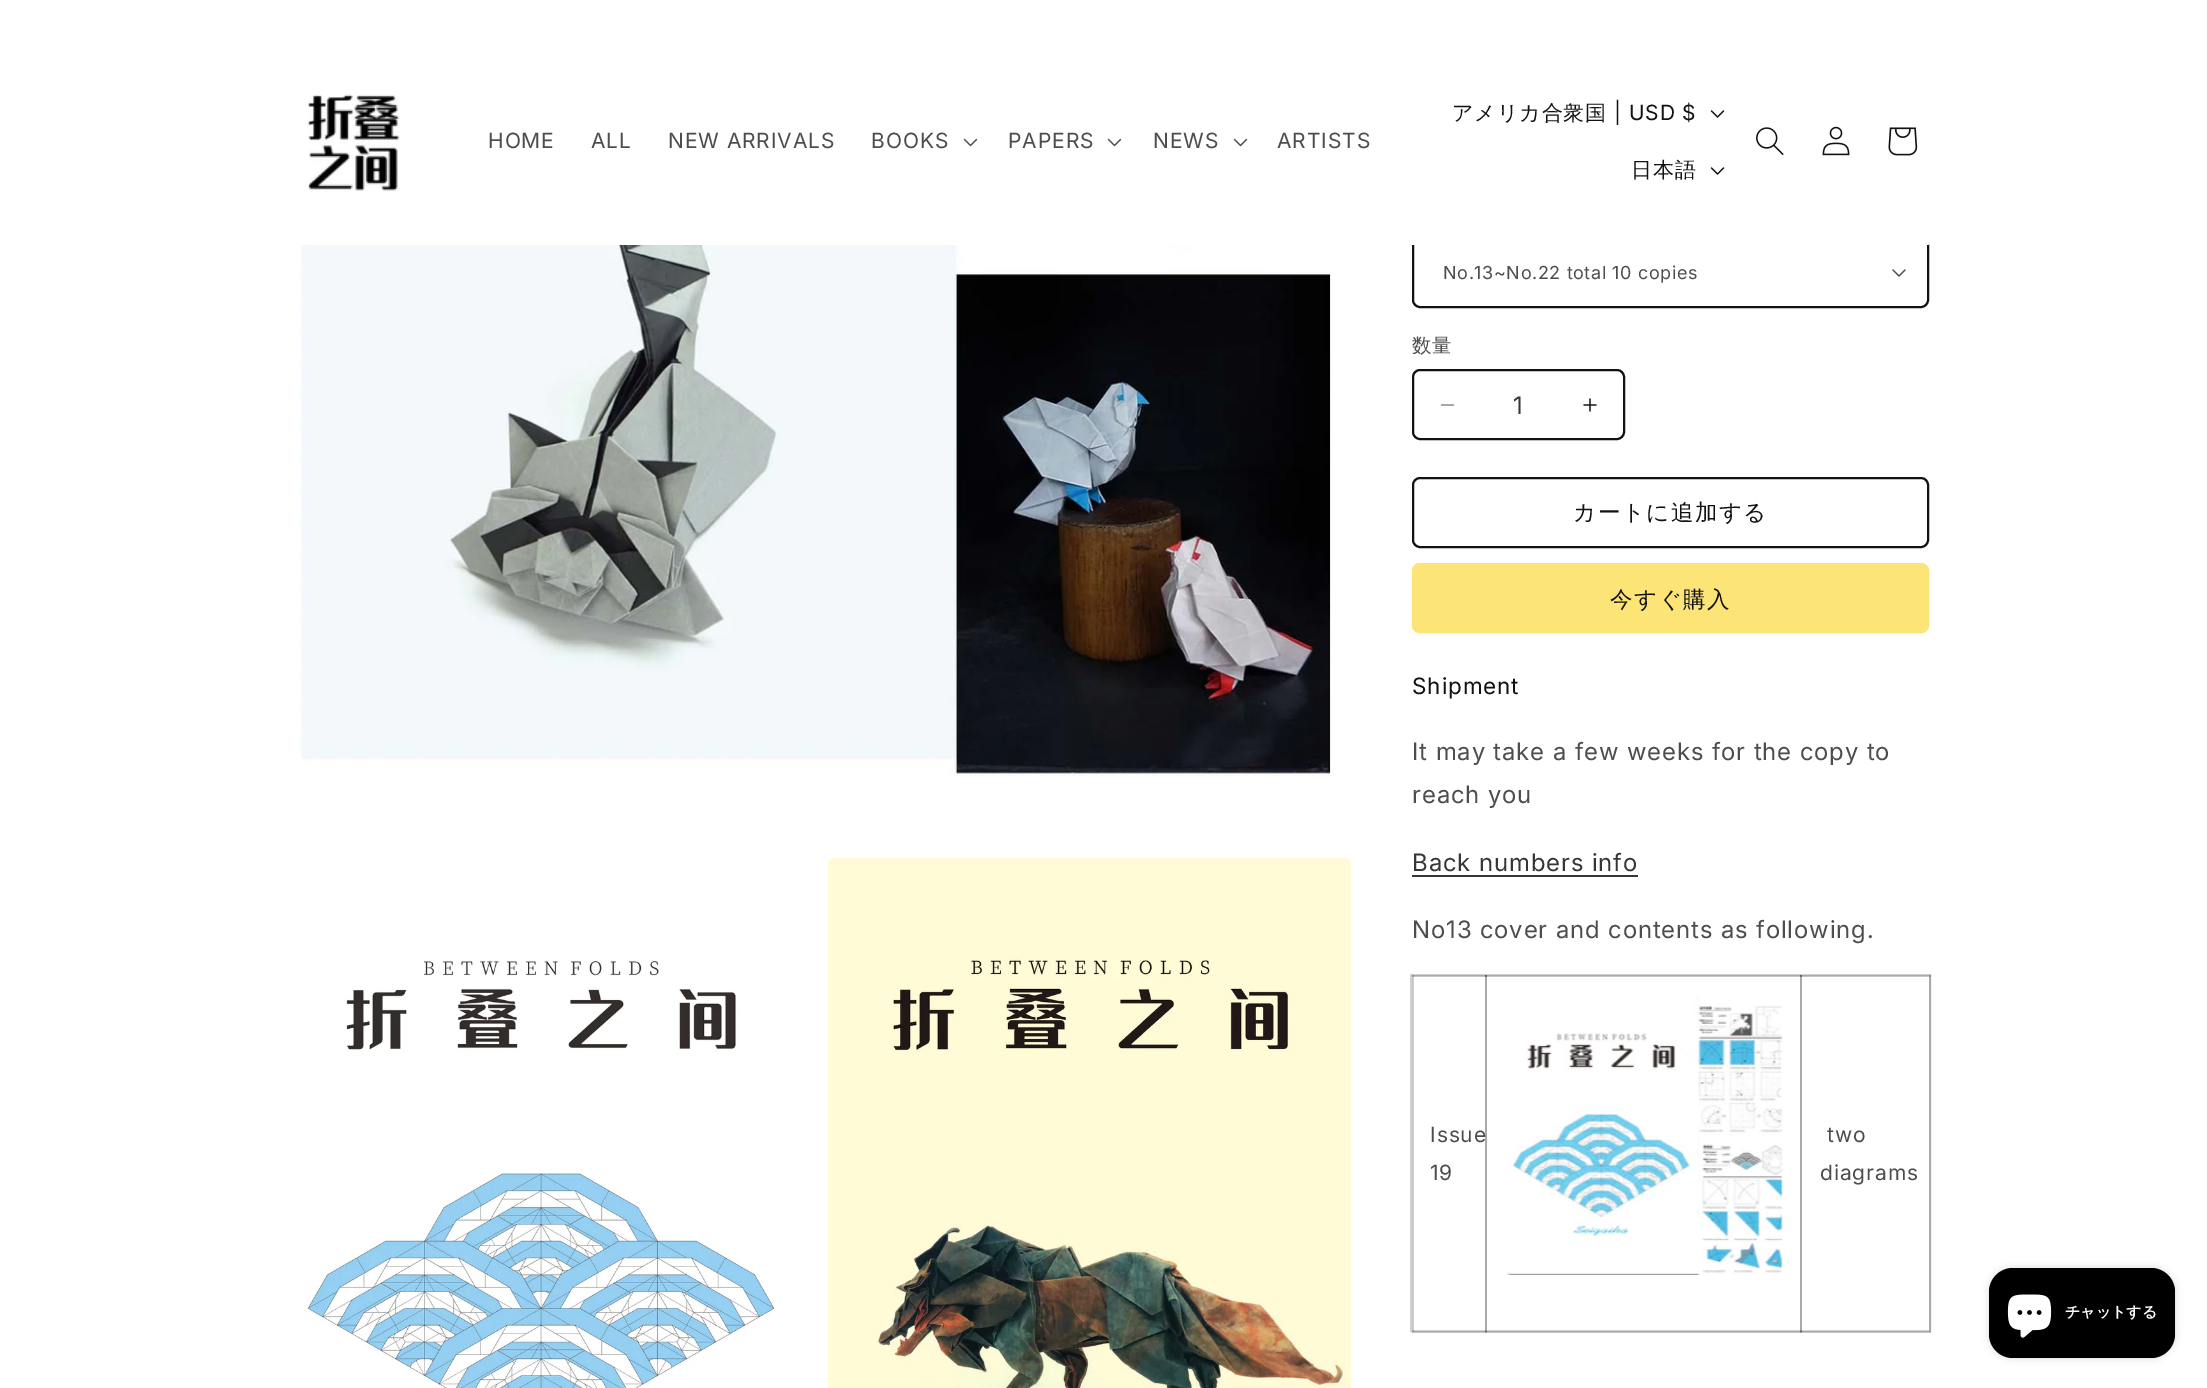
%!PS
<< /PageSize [2207 1388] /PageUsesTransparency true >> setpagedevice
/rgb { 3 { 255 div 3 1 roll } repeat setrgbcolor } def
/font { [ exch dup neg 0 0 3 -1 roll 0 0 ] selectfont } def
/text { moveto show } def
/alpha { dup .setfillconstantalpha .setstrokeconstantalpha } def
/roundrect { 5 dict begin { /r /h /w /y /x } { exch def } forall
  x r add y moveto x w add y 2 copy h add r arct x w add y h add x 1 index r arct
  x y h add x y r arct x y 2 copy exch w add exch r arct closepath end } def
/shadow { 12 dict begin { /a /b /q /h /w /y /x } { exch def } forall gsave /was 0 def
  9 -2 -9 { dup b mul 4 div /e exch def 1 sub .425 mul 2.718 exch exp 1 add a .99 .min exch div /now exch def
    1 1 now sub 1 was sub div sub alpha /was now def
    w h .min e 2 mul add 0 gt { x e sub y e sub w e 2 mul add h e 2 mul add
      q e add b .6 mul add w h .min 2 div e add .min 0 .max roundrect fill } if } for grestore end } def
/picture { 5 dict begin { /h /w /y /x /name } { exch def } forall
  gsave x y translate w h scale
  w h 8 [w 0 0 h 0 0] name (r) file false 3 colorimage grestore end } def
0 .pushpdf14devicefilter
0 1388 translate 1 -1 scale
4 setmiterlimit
255 255 255 rgb
0 0 2207 1388 rectfill
(img_10.rgb) 1892 269 14 8 picture
18 18 18 rgb
2 setlinewidth
1413 238 515 69 7 roundrect stroke
255 255 255 rgb
1412 237 517 8 rectfill
(img_01.rgb) 307 94 93 98 picture
(img_02.rgb) 963 138 15 9 picture
(img_02.rgb) 1107 138 15 9 picture
(img_02.rgb) 1233 138 15 9 picture
(img_03.rgb) 1710 110 15 8 picture
(img_03.rgb) 1710 167 15 8 picture
(img_04.rgb) 1756 127 28 28 picture
(img_05.rgb) 1822 126 28 30 picture
(img_06.rgb) 1888 127 30 29 picture
(img_07.rgb) 300 245 1031 531 picture
(img_08.rgb) 306 960 469 428 picture
(img_09.rgb) 828 858 524 530 picture
(img_11.rgb) 1440 404 15 2 picture
(img_12.rgb) 1583 398 14 14 picture
18 18 18 rgb
1413 370 211 69 7 roundrect stroke
1413 478 515 69 7 roundrect stroke
252 228 119 rgb
1412 563 517 70 8 roundrect fill
1413 564 515 68 7 roundrect stroke
54 54 54 rgb
1412 875 226 2 rectfill
208 208 208 rgb
1411 975 519 356 rectstroke
0.2 alpha
18 18 18 rgb
1800 975 131 2 rectfill
1929 975 2 357 rectfill
1800 1331 131 2 rectfill
1800 975 2 357 rectfill
1485 975 317 2 rectfill
1800 975 2 357 rectfill
1485 1331 317 2 rectfill
1485 975 2 357 rectfill
1412 975 75 2 rectfill
1485 975 2 357 rectfill
1412 1331 75 2 rectfill
1412 975 2 357 rectfill
1 alpha
(img_13.rgb) 1506 996 277 279 picture
0 0 0 rgb
1989 1268 186 90 24 4 0.15 shadow
1989 1268 186 90 24 roundrect fill
(img_14.rgb) 2007 1294 45 44 picture
/Inter-Regular 21 font
77 77 77 rgb
488 148 moveto 0.9 0 (HOME) ashow
591 148 moveto 0.9 0 (ALL) ashow
668 148 moveto 0.9 0 (NEW ARRIVALS) ashow
871 148 moveto 0.9 0 (BOOKS) ashow
1008 148 moveto 0.9 0 (PAPERS) ashow
1153 148 moveto 0.9 0 (NEWS) ashow
1277 148 moveto 0.9 0 (ARTISTS) ashow
/WenQuanYiZenHei-Medium 21 font
18 18 18 rgb
1452 120 moveto 0.9 0 (アメリカ合衆国) ashow
/Inter-Regular 21 font
1614 120 moveto 0.9 0 (| USD $) ashow
/WenQuanYiZenHei-Medium 21 font
1631 177 moveto 0.9 0 (日本語) ashow
/Inter-Regular 18 font
77 77 77 rgb
1443 279 moveto 0.6 0 (No.13~No.22 total 10 copies) ashow
/WenQuanYiZenHei-Medium 19.5 font
1412 352 moveto 0.6 0 (数量) ashow
/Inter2-Regular 24 font
54 54 54 rgb
(1) 1513 414 text
/WenQuanYiZenHei-Medium 22.5 font
18 18 18 rgb
1573 520 moveto 1.5 0 (カートに追加する) ashow
1610 607 moveto 1.5 0 (今すぐ購入) ashow
/Inter-Regular 22.5 font
1412 694 moveto 0.9 0 (Shipment) ashow
/Inter2-Regular 24 font
77 77 77 rgb
1412 760 moveto 0.9 0 (It may take a few weeks for the copy to) ashow
1412 803 moveto 0.9 0 (reach you) ashow
54 54 54 rgb
1412 871 moveto 0.9 0 (Back numbers info) ashow
77 77 77 rgb
1412 938 moveto 0.9 0 (No13 cover and contents as following.) ashow
/Inter-Regular 21 font
1430 1142 moveto 0.9 0 (Issue) ashow
1430 1180 moveto 0.9 0 (19) ashow
1827 1142 moveto 0.9 0 (two) ashow
1820 1180 moveto 0.9 0 (diagrams) ashow
/WenQuanYiZenHei-Bold 15 font
255 255 255 rgb
(チャットする) 2065 1317 text
.poppdf14devicefilter showpage
